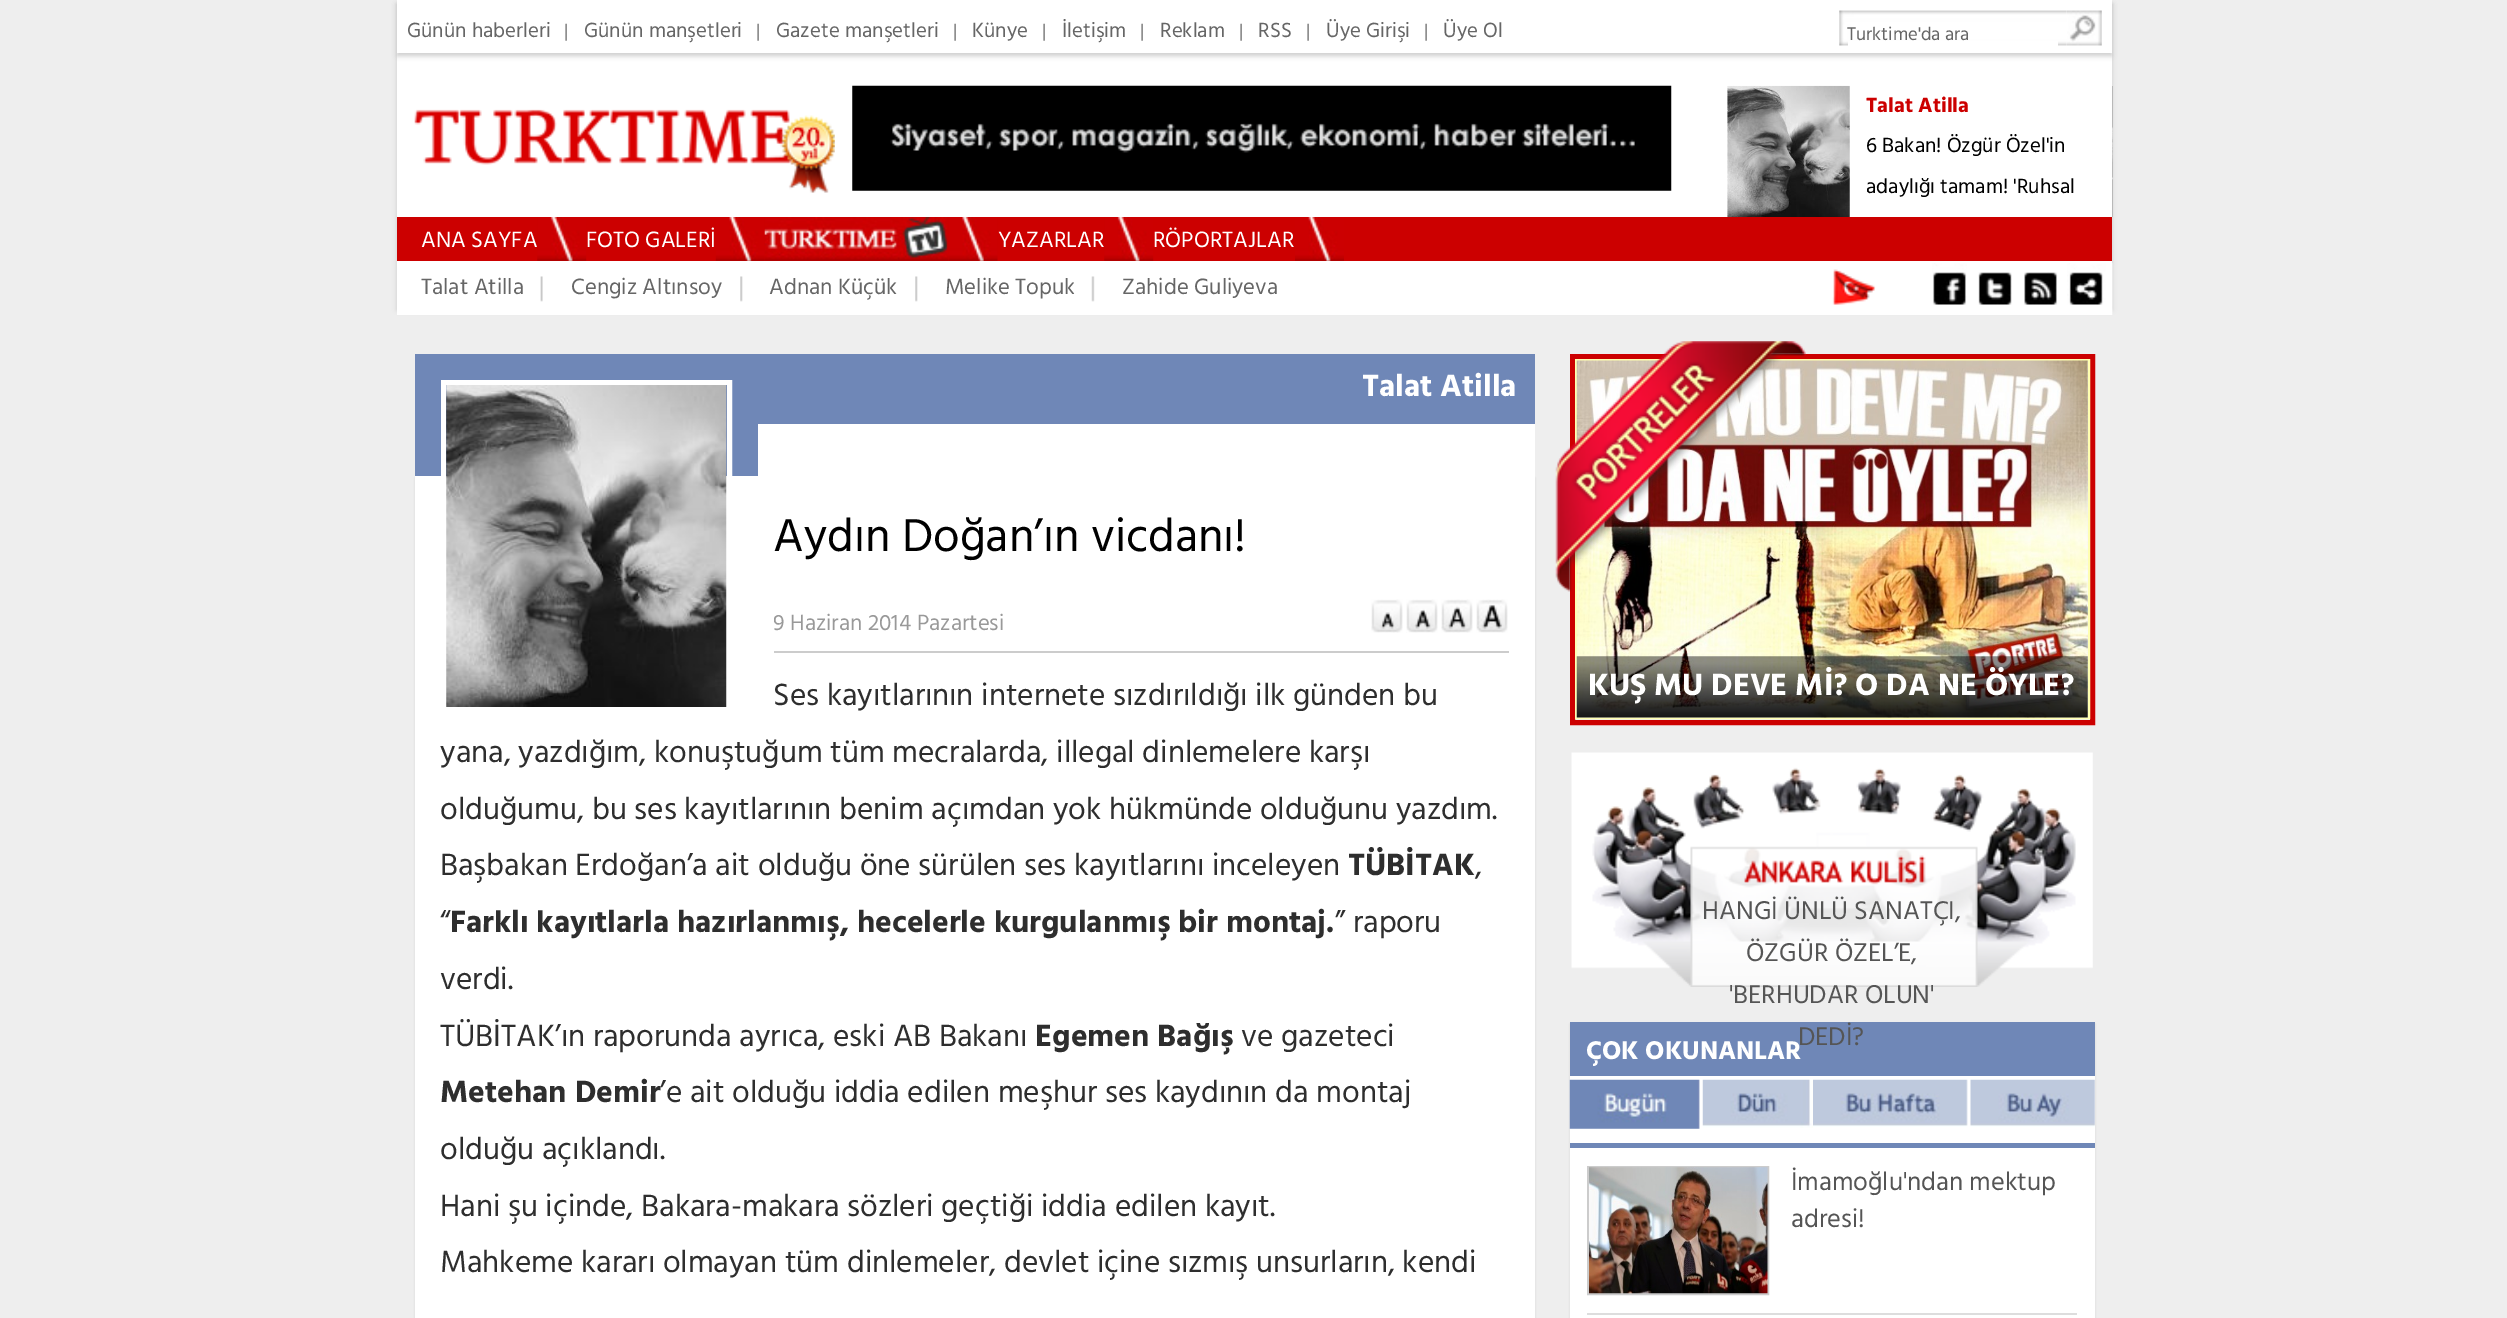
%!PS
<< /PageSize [2507 1318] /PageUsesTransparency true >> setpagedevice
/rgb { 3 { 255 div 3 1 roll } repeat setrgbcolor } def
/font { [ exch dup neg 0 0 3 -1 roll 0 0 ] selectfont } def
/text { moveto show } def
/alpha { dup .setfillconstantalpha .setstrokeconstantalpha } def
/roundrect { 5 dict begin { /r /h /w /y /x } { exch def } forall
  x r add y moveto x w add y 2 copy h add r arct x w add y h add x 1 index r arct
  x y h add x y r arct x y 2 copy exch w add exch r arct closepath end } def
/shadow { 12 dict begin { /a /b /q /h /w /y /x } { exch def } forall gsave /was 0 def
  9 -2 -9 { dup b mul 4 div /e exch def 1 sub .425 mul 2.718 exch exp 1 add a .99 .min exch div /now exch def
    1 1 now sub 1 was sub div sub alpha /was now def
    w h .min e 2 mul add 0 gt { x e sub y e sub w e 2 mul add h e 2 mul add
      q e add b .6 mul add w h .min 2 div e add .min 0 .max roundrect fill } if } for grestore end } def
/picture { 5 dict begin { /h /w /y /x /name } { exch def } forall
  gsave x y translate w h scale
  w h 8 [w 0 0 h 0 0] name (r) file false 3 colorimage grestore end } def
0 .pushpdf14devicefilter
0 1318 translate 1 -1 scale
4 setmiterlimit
238 238 238 rgb
0 0 2507 1318 rectfill
204 204 204 rgb
397 4 1715 306 0 2.5 1 shadow
255 255 255 rgb
397 53 1715 210 rectfill
204 204 204 rgb
397 4 1715 52 0 2.5 1 shadow
255 255 255 rgb
397 0 1715 53 rectfill
(img_01.rgb) 1839 10 228 36 picture
1848 41 210 5 rectfill
(img_02.rgb) 2067 10 35 36 picture
(img_03.rgb) 414 109 421 84 picture
(img_04.rgb) 852 85 820 106 picture
(img_05.rgb) 1727 85 123 132 picture
(img_06.rgb) 2112 86 1 131 picture
204 0 0 rgb
397 217 1715 44 rectfill
(img_07.rgb) 537 217 50 44 picture
(img_08.rgb) 715 217 50 44 picture
(img_09.rgb) 764 217 185 44 picture
(img_10.rgb) 948 217 50 44 picture
(img_11.rgb) 1104 217 50 44 picture
(img_12.rgb) 1295 217 49 44 picture
255 255 255 rgb
397 263 1670 52 rectfill
(img_13.rgb) 540 276 3 26 picture
(img_14.rgb) 740 276 3 26 picture
(img_14.rgb) 915 276 3 26 picture
(img_16.rgb) 1832 269 44 36 picture
(img_17.rgb) 1932 263 35 42 picture
(img_18.rgb) 1978 272 34 33 picture
(img_19.rgb) 2024 272 34 33 picture
(img_20.rgb) 2067 263 46 52 picture
211 211 211 rgb
415 478 1120 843 0 1 1 shadow
111 135 183 rgb
415 354 343 122 rectfill
255 255 255 rgb
415 476 1120 842 rectfill
5 setlinewidth
443.5 382.5 286 327 rectstroke
(img_21.rgb) 446 385 281 322 picture
111 135 183 rgb
758 354 777 70 rectfill
255 255 255 rgb
758 424 777 52 rectfill
(img_22.rgb) 1371 599 32 34 picture
(img_23.rgb) 1406 599 32 34 picture
(img_24.rgb) 1441 599 32 34 picture
(img_25.rgb) 1476 599 32 34 picture
204 204 204 rgb
774 651 735 2 rectfill
204 0 0 rgb
1572.5 356.5 520 366 rectstroke
255 255 177 rgb
2 setlinewidth
1576 360 513 358 rectstroke
(img_27.rgb) 1576 360 512 358 picture
(img_26.rgb) 1555 341 251 251 picture
(img_28.rgb) 1576 656 512 62 picture
(img_29.rgb) 1571 752 522 235 picture
211 211 211 rgb
1570 1024 525 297 0 1 1 shadow
255 255 255 rgb
1570 1076 525 242 rectfill
111 135 183 rgb
1570 1022 525 54 rectfill
(img_30.rgb) 1569 1079 131 50 picture
(img_31.rgb) 1702 1079 111 49 picture
(img_32.rgb) 1813 1079 155 48 picture
(img_33.rgb) 1970 1079 125 48 picture
1570 1143 525 5 rectfill
204 204 204 rgb
1588 1167 180 127 rectstroke
(img_34.rgb) 1589 1167 179 127 picture
221 221 221 rgb
1587 1313 490 2 rectfill
/Hind-Regular 21 font
102 102 102 rgb
(Günün haberleri) 407 37 text
/Hind-Regular 19 font
(|) 564 37 text
/Hind-Regular 21 font
(Günün manşetleri) 584 37 text
/Hind-Regular 19 font
(|) 756 37 text
/Hind-Regular 21 font
(Gazete manşetleri) 776 37 text
/Hind-Regular 19 font
(|) 953 37 text
/Hind-Regular 21 font
(Künye) 972 37 text
/Hind-Regular 19 font
(|) 1042 37 text
/Hind-Regular 21 font
(İletişim) 1062 37 text
/Hind-Regular 19 font
(|) 1140 37 text
/Hind-Regular 21 font
(Reklam) 1160 37 text
/Hind-Regular 19 font
(|) 1239 37 text
/Hind-Regular 21 font
(RSS) 1258 37 text
/Hind-Regular 19 font
(|) 1306 37 text
/Hind-Regular 21 font
(Üye Girişi) 1326 37 text
/Hind-Regular 19 font
(|) 1424 37 text
/Hind-Regular 21 font
(Üye Ol) 1443 37 text
/Hind-Regular 18.75 font
(Turktime'da ara) 1847 40 text
/Hind-Bold 21 font
204 0 0 rgb
(Talat Atilla) 1866 112 text
/Hind-Regular 21 font
0 0 0 rgb
(6 Bakan! Özgür Özel'in) 1866 152 text
(adaylığı tamam! 'Ruhsal) 1866 193 text
/Hind-Regular 22.75 font
255 255 255 rgb
(ANA SAYFA) 421 247 text
(FOTO GALERİ) 586 247 text
(YAZARLAR) 998 247 text
(RÖPORTAJLAR) 1153 247 text
102 102 102 rgb
(Talat Atilla) 421 294 text
(Cengiz Altınsoy) 571 294 text
(Adnan Küçük) 769 294 text
(Melike Topuk) 945 294 text
(img_15.rgb) 1074 276 21 26 picture
(Zahide Guliyeva) 1122 294 text
/Hind-Bold 31.5 font
255 255 255 rgb
(Talat Atilla) 1362 396 text
/Hind-Regular 47.25 font
0 0 0 rgb
(Aydın Doğan’ın vicdanı!) 773 551 text
gsave
774 595 735 56 rectclip
/Hind-Regular 22.75 font
153 153 153 rgb
(9 Haziran 2014 Pazartesi) 773 630 text
grestore
/Hind-Regular 31.5 font
46 46 46 rgb
(Ses kayıtlarının internete sızdırıldığı ilk günden bu) 773 705 text
(yana, yazdığım, konuştuğum tüm mecralarda, illegal dinlemelere karşı) 440 762 text
(olduğumu, bu ses kayıtlarının benim açımdan yok hükmünde olduğunu yazdım.) 440 819 text
(Başbakan Erdoğan’a ait olduğu öne sürülen ses kayıtlarını inceleyen) 440 875 text
/Hind-Bold 31.5 font
(TÜBİTAK) 1348 875 text
/Hind-Regular 31.5 font
(,) 1475 875 text
(“) 440 932 text
/Hind-Bold 31.5 font
(Farklı kayıtlarla hazırlanmış, hecelerle kurgulanmış bir montaj.) 450 932 text
/Hind-Regular 31.5 font
(” raporu) 1335 932 text
(verdi.) 440 989 text
(TÜBİTAK’ın raporunda ayrıca, eski AB Bakanı) 440 1046 text
/Hind-Bold 31.5 font
(Egemen Bağış) 1035 1046 text
/Hind-Regular 31.5 font
(ve gazeteci) 1241 1046 text
/Hind-Bold 31.5 font
(Metehan Demir) 440 1102 text
/Hind-Regular 31.5 font
(’e ait olduğu iddia edilen meşhur ses kaydının da montaj) 660 1102 text
(olduğu açıklandı.) 440 1159 text
(Hani şu içinde, Bakara-makara sözleri geçtiği iddia edilen kayıt.) 440 1216 text
(Mahkeme kararı olmayan tüm dinlemeler, devlet içine sızmış unsurların, kendi) 440 1272 text
/Hind-Bold 31.5 font
255 255 255 rgb
(KUŞ MU DEVE Mİ? O DA NE ÖYLE?) 1588 695 text
/Hind-Regular 26.25 font
85 85 85 rgb
(HANGİ ÜNLÜ SANATÇI,) 1702 919 text
(ÖZGÜR ÖZEL’E,) 1746 961 text
('BERHUDAR OLUN') 1729 1003 text
(DEDİ?) 1798 1045 text
/Hind-Bold 26.25 font
255 255 255 rgb
(ÇOK OKUNANLAR) 1586 1059 text
/Hind-Regular 26.25 font
85 85 85 rgb
(İmamoğlu'ndan mektup) 1791 1190 text
(adresi!) 1791 1227 text
.poppdf14devicefilter showpage
